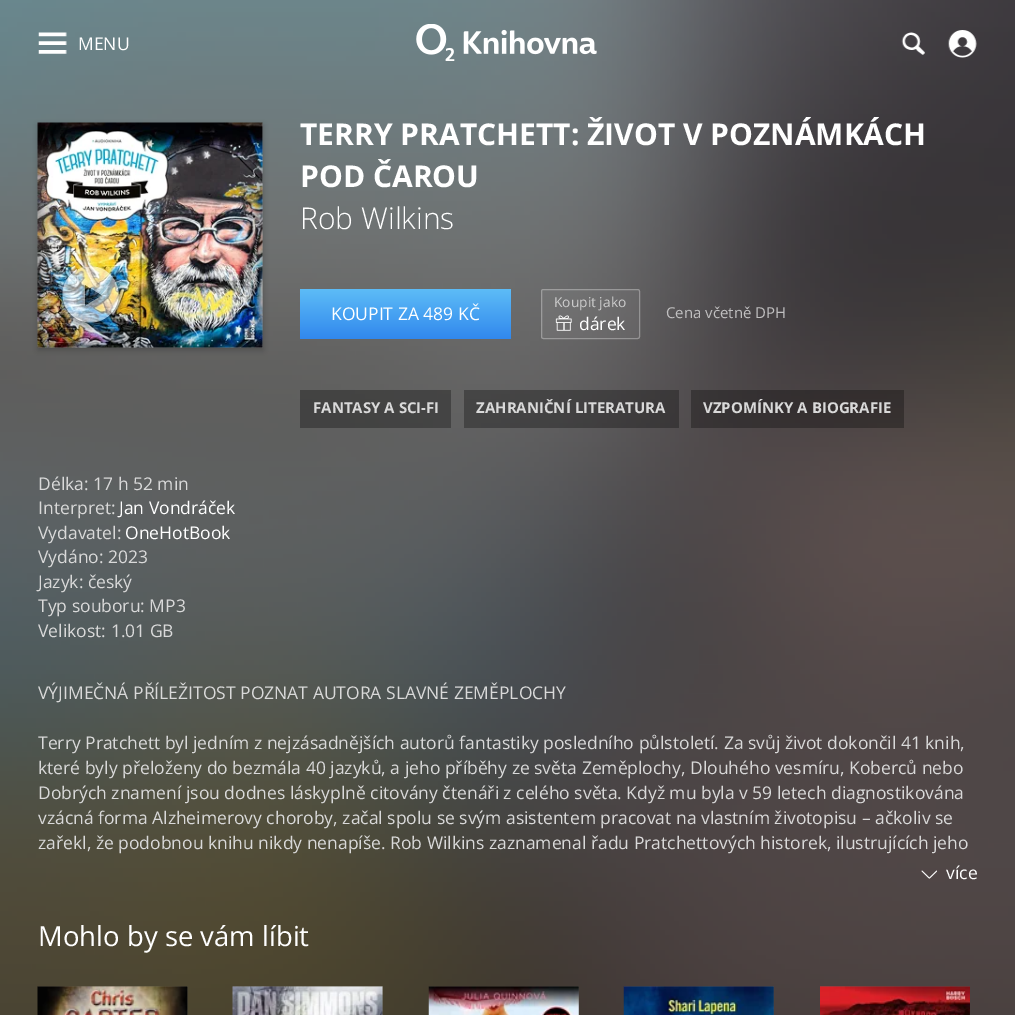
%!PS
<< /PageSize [1015 1015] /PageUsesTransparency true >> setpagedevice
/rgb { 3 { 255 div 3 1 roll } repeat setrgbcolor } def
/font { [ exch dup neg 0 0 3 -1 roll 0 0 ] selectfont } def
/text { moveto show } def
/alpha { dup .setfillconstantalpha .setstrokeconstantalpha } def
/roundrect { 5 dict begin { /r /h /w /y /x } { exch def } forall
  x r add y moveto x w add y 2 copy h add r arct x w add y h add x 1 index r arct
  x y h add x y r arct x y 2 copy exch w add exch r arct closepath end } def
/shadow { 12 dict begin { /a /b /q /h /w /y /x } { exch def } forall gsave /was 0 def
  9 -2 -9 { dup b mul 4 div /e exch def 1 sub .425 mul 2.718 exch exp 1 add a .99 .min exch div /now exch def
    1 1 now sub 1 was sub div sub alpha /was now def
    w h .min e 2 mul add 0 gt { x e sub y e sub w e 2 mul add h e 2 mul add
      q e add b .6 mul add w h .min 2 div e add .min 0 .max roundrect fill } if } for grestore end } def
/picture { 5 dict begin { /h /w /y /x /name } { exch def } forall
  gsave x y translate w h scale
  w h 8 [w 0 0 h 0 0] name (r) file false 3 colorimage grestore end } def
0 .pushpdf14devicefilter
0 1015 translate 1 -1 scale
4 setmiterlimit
255 255 255 rgb
0 0 1015 1015 rectfill
(img_01.rgb) 0 0 1015 1015 picture
(img_02.rgb) 38 32 29 22 picture
(img_03.rgb) 416 24 181 37 picture
(img_04.rgb) 901 32 24 23 picture
(img_05.rgb) 948 30 29 28 picture
0 0 0 rgb
38 125 225 225 0 3 0.2 shadow
0.1 alpha
255 255 255 rgb
38 123 225 225 rectfill
1 alpha
(img_06.rgb) 37 122 226 226 picture
(img_07.rgb) 56 263 70 70 picture
gsave 300 289 211 50 2.5 roundrect clip newpath
<< /ShadingType 2 /ColorSpace /DeviceRGB /Coords [406 289 406 339] /Extend [true true] /Function << /FunctionType 2 /Domain [0 1] /C0 [0.365 0.737 0.969] /C1 [0.192 0.533 0.929] /N 1 >> >> shfill grestore
0.05 alpha
541 289 99 50 rectfill
0.3 alpha
541.5 289.5 98 49 2 roundrect stroke
1 alpha
(img_08.rgb) 555 315 17 16 picture
0.3 alpha
0 0 0 rgb
300 390 151 38 rectfill
464 390 215 38 rectfill
691 390 213 38 rectfill
1 alpha
(img_09.rgb) 921 870 16 9 picture
0.1 alpha
255 255 255 rgb
38 986 150 29 rectfill
1 alpha
(img_10.rgb) 37 986 151 29 picture
0.1 alpha
233 986 150 29 rectfill
1 alpha
(img_11.rgb) 232 986 151 29 picture
0.1 alpha
429 986 150 29 rectfill
1 alpha
(img_12.rgb) 428 986 151 29 picture
0.1 alpha
624 986 150 29 rectfill
1 alpha
(img_13.rgb) 623 986 151 29 picture
0.1 alpha
820 986 150 1 rectfill
1 alpha
(img_14.rgb) 820 986 150 29 picture
/OpenSans-Regular 17.5 font
(MENU) 78 50 text
/OpenSans-Bold 30 font
(TERRY PRATCHETT: ŽIVOT V POZNÁMKÁCH) 300 145 text
(POD ČAROU) 300 187 text
/OpenSans-Light 30 font
(Rob Wilkins) 300 229 text
/OpenSans-Regular 17.5 font
(KOUPIT ZA 489 KČ) 331 320 text
/OpenSans-Regular 13.75 font
204 204 204 rgb
(Koupit jako) 554 307 text
/OpenSans-Regular 17.5 font
255 255 255 rgb
(dárek) 579 330 text
/OpenSans-Regular 15 font
192 191 192 rgb
(Cena včetně DPH) 666 318 text
/OpenSans-Bold 15 font
217 217 217 rgb
(FANTASY A SCI-FI) 313 413 text
(ZAHRANIČNÍ LITERATURA) 476 413 text
(VZPOMÍNKY A BIOGRAFIE) 703 413 text
/OpenSans-Regular 17.5 font
(Délka: 17 h 52 min) 38 490 text
(Interpret:) 38 514 text
255 255 255 rgb
(Jan Vondráček) 119 514 text
217 217 217 rgb
(Vydavatel:) 38 539 text
255 255 255 rgb
(OneHotBook) 125 539 text
217 217 217 rgb
(Vydáno: 2023) 38 563 text
(Jazyk: český) 38 588 text
(Typ souboru: MP3) 38 612 text
(Velikost: 1.01 GB) 38 637 text
(VÝJIMEČNÁ PŘÍLEŽITOST POZNAT AUTORA SLAVNÉ ZEMĚPLOCHY) 38 699 text
(Terry Pratchett byl jedním z nejzásadnějších autorů fantastiky posledního půlstoletí. Za svůj život dokončil 41 knih,) 38 749 text
(které byly přeloženy do bezmála 40 jazyků, a jeho příběhy ze světa Zeměplochy, Dlouhého vesmíru, Koberců nebo) 38 774 text
(Dobrých znamení jsou dodnes láskyplně citovány čtenáři z celého světa. Když mu byla v 59 letech diagnostikována) 38 799 text
(vzácná forma Alzheimerovy choroby, začal spolu se svým asistentem pracovat na vlastním životopisu – ačkoliv se) 38 824 text
(zařekl, že podobnou knihu nikdy nenapíše. Rob Wilkins zaznamenal řadu Pratchettových historek, ilustrujících jeho) 38 849 text
255 255 255 rgb
(více) 946 879 text
/OpenSans-Regular 27.5 font
(Mohlo by se vám líbit) 38 946 text
.poppdf14devicefilter showpage
